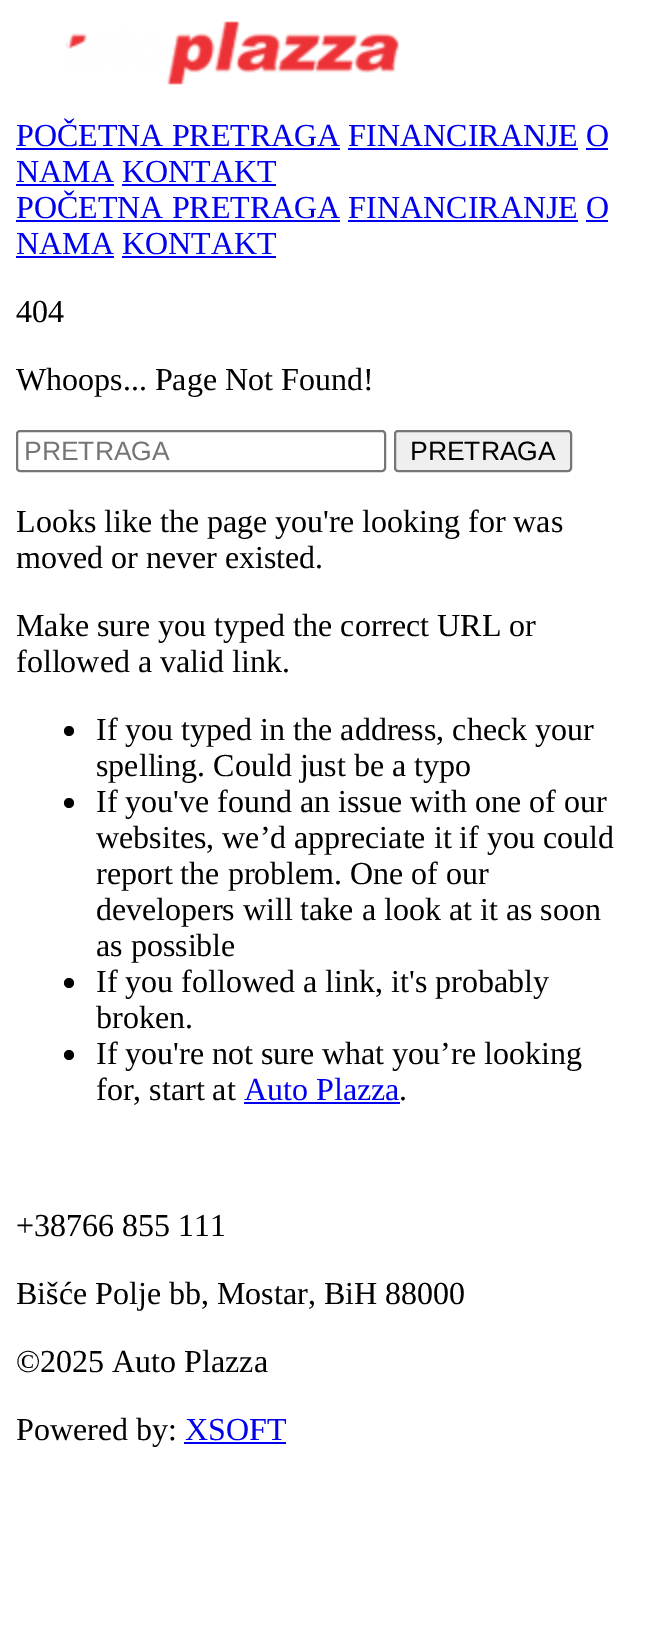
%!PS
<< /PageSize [647 1651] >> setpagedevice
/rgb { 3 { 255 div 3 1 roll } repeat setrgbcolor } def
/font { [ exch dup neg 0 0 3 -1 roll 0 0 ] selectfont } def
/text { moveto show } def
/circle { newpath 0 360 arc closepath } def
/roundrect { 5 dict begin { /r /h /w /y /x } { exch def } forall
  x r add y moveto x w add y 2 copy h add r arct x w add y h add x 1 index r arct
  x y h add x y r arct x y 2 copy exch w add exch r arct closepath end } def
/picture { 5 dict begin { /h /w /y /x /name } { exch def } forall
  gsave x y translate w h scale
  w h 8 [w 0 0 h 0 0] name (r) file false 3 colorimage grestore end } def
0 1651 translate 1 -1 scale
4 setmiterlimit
255 255 255 rgb
0 0 647 1651 rectfill
(img_01.rgb) 65 21 334 64 picture
0 0 238 rgb
16 148 324 2 rectfill
348 148 230 2 rectfill
586 148 22 2 rectfill
16 184 98 2 rectfill
122 184 154 2 rectfill
16 220 324 2 rectfill
348 220 230 2 rectfill
586 220 22 2 rectfill
16 256 98 2 rectfill
122 256 154 2 rectfill
118 118 118 rgb
2 setlinewidth
17 431 368 40 3 roundrect stroke
239 239 239 rgb
395 431 176 40 3 roundrect gsave fill grestore
118 118 118 rgb
stroke
0 0 0 rgb
69 731 5 circle fill
69 803 5 circle fill
69 983 5 circle fill
69 1055 5 circle fill
0 0 238 rgb
244 1102 156 2 rectfill
184 1442 102 2 rectfill
/LiberationSerif-Regular 32 font
(POČETNA PRETRAGA FINANCIRANJE O) 16 146 text
(NAMA KONTAKT) 16 182 text
(POČETNA PRETRAGA FINANCIRANJE O) 16 218 text
(NAMA KONTAKT) 16 254 text
0 0 0 rgb
(404) 16 322 text
(Whoops... Page Not Found!) 16 390 text
/LiberationSans-Regular 26.5 font
117 117 117 rgb
(PRETRAGA) 24 460 text
0 0 0 rgb
(PRETRAGA) 410 460 text
/LiberationSerif-Regular 32 font
(Looks like the page you're looking for was) 16 532 text
(moved or never existed.) 16 568 text
(Make sure you typed the correct URL or) 16 636 text
(followed a valid link.) 16 672 text
(If you typed in the address, check your) 96 740 text
(spelling. Could just be a typo) 96 776 text
(If you've found an issue with one of our) 96 812 text
(websites, we’d appreciate it if you could) 96 848 text
(report the problem. One of our) 96 884 text
(developers will take a look at it as soon) 96 920 text
(as possible) 96 956 text
(If you followed a link, it's probably) 96 992 text
(broken.) 96 1028 text
(If you're not sure what you’re looking) 96 1064 text
(for, start at) 96 1100 text
0 0 238 rgb
(Auto Plazza) 244 1100 text
0 0 0 rgb
(.) 399 1100 text
(+38766 855 111) 16 1236 text
(Bišće Polje bb, Mostar, BiH 88000) 16 1304 text
(©2025 Auto Plazza) 16 1372 text
(Powered by:) 16 1440 text
0 0 238 rgb
(XSOFT) 185 1440 text
showpage
